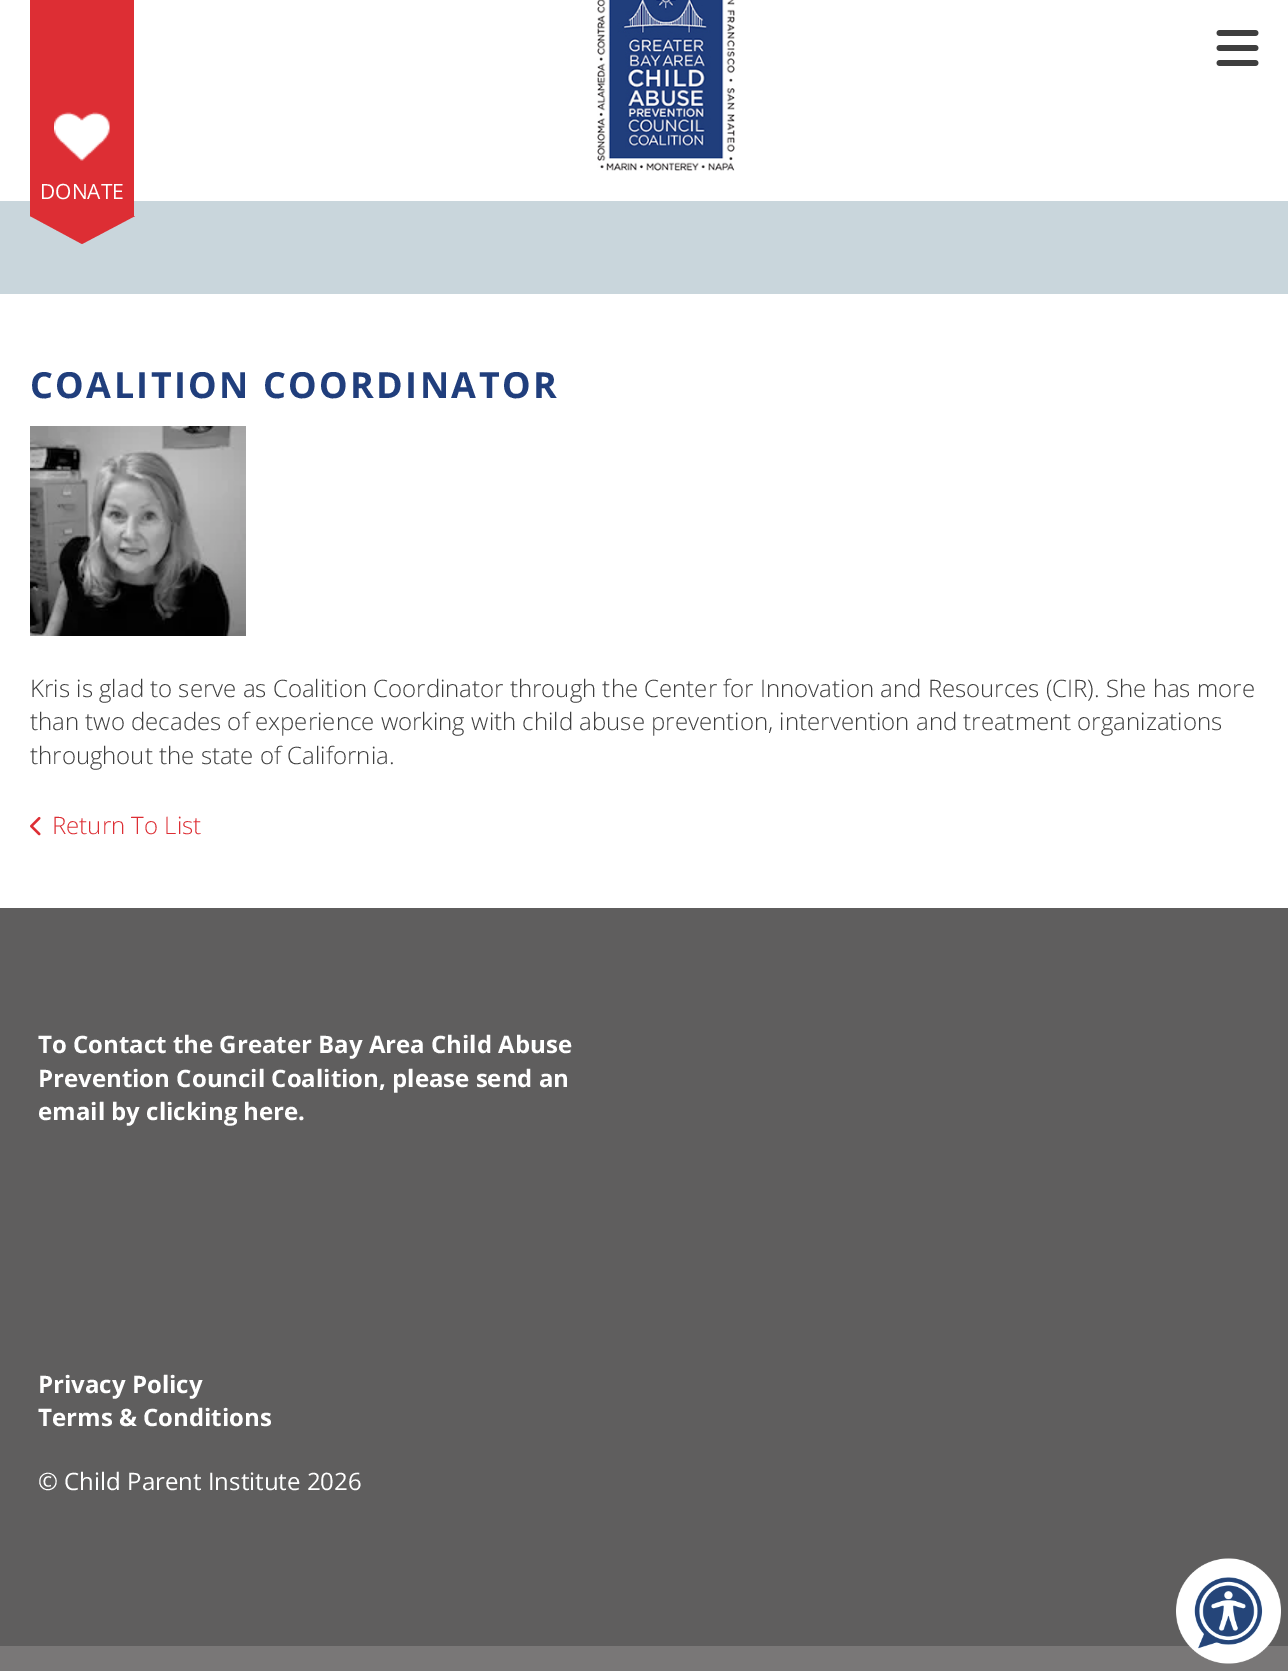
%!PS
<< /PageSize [1288 1671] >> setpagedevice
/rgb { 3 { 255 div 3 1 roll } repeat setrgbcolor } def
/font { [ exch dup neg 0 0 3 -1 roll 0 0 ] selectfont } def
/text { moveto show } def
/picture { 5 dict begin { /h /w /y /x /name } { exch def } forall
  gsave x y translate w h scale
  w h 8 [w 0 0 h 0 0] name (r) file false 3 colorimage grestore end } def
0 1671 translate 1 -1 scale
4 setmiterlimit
95 94 94 rgb
0 0 1288 1671 rectfill
255 255 255 rgb
0 0 1288 201 rectfill
(img_01.rgb) 597 0 138 171 picture
(img_02.rgb) 1216 30 43 36 picture
201 214 220 rgb
0 201 1288 93 rectfill
221 46 52 rgb
30 0 104 216 rectfill
(img_03.rgb) 54 112 56 49 picture
30 216 moveto 105 0 rlineto -53 28 rlineto closepath fill
255 255 255 rgb
0 294 1288 614 rectfill
(img_04.rgb) 30 426 216 210 picture
(img_05.rgb) 30 816 11 20 picture
121 119 119 rgb
0 1646 1288 25 rectfill
(img_06.rgb) 1176 1558 105 106 picture
/OpenSans-Regular 21 font
255 255 255 rgb
(DONATE) 40 199 text
/OpenSans-Bold 36 font
32 62 124 rgb
30 398 moveto 2.4 0 (COALITION COORDINATOR) ashow
/OpenSans-Light 24 font
62 62 62 rgb
(Kris is glad to serve as Coalition Coordinator through the Center for Innovation and Resources \(CIR\). She has more) 30 697 text
(than two decades of experience working with child abuse prevention, intervention and treatment organizations) 30 730 text
(throughout the state of California.) 30 764 text
221 46 52 rgb
(Return To List) 52 834 text
/OpenSans-Bold 24 font
255 255 255 rgb
(To Contact the Greater Bay Area Child Abuse) 38 1053 text
(Prevention Council Coalition, please send an) 38 1087 text
(email by clicking here.) 38 1120 text
(Privacy Policy) 38 1393 text
(Terms & Conditions) 38 1426 text
/OpenSans-Regular 24 font
(© Child Parent Institute 2026) 38 1490 text
showpage
